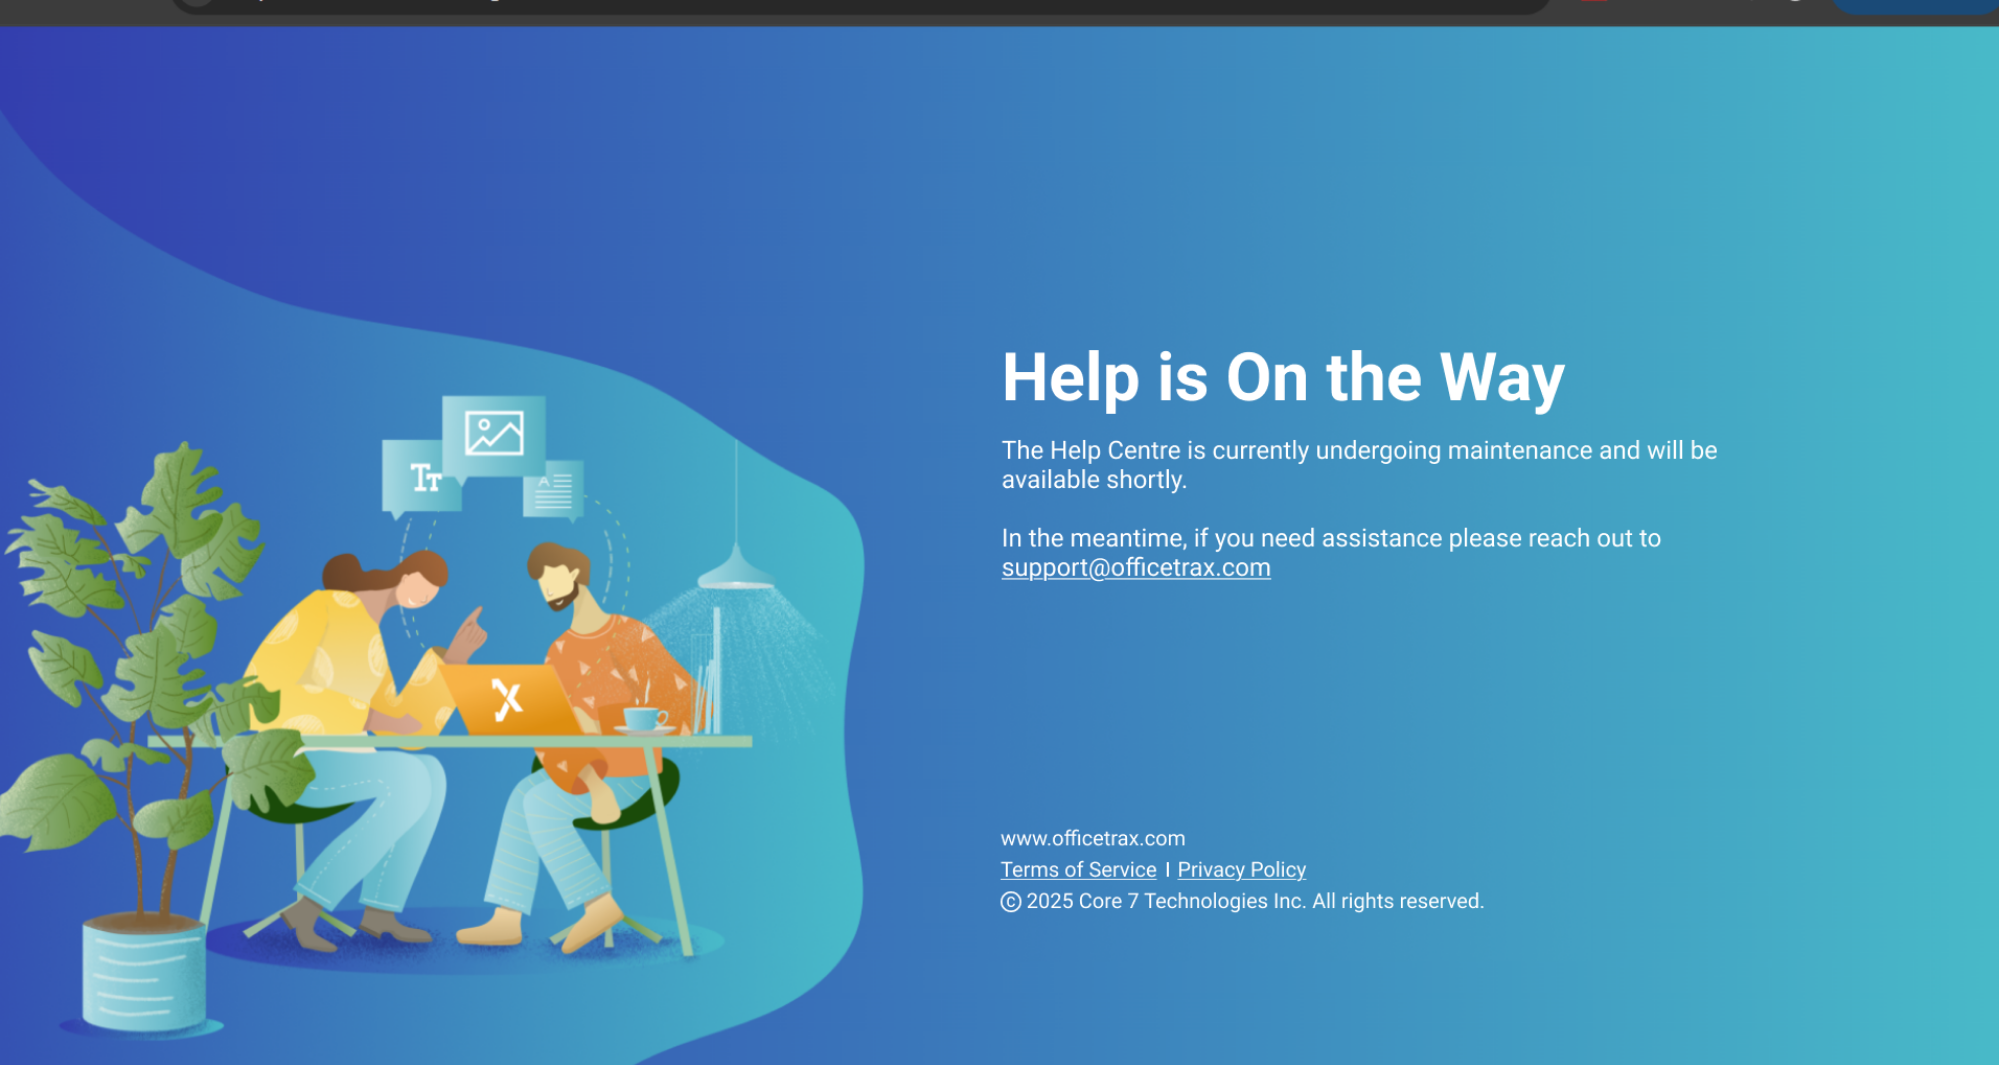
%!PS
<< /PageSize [1999 1065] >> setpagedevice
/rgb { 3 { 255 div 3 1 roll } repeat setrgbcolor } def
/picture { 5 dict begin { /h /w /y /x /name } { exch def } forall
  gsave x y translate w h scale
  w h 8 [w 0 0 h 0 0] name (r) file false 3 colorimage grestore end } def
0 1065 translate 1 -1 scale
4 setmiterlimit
255 255 255 rgb
0 0 1999 1065 rectfill
(img_01.rgb) 0 0 1999 1065 picture
showpage
